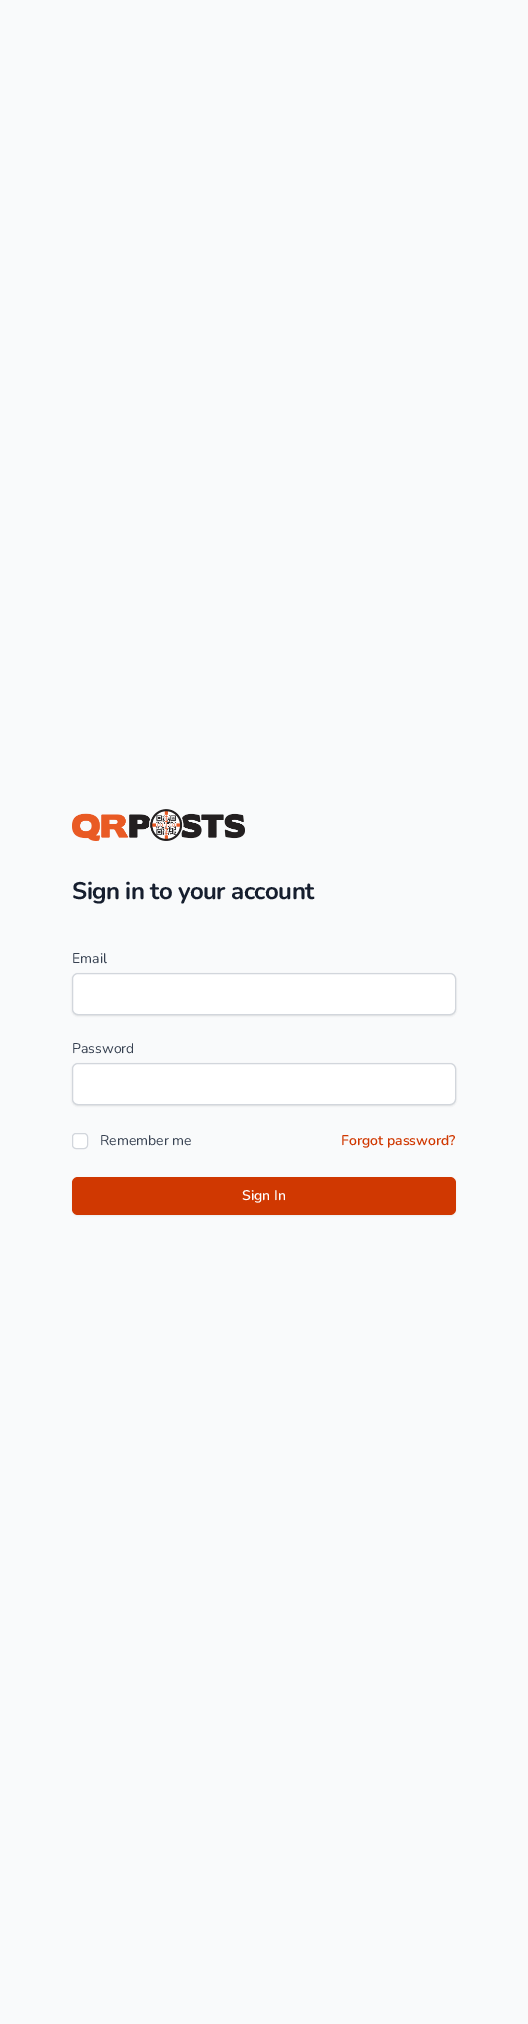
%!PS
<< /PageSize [528 2024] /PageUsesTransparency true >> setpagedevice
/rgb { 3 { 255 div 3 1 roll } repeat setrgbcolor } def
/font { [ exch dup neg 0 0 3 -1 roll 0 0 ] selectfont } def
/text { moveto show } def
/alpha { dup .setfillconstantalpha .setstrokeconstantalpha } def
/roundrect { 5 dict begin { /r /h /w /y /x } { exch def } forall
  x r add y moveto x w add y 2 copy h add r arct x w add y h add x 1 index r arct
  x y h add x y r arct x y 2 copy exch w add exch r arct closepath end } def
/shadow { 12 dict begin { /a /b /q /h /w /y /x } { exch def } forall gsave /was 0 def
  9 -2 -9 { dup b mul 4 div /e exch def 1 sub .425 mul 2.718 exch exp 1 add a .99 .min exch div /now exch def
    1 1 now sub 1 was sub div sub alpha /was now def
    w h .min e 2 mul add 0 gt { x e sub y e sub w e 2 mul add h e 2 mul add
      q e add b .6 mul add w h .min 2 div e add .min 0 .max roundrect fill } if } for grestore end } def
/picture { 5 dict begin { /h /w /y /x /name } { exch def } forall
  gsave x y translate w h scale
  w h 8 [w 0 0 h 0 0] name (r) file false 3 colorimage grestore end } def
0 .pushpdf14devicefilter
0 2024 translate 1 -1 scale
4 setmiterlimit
249 250 251 rgb
0 0 528 2024 rectfill
(img_01.rgb) 72 809 173 32 picture
0 0 0 rgb
72 974 384 42 6 1 0.05 shadow
72 974 384 42 6 1 0.05 shadow
255 255 255 rgb
72.5 973.5 383 41 5.5 roundrect gsave fill grestore
210 214 220 rgb
stroke
0 0 0 rgb
72 1064 384 42 6 1 0.05 shadow
72 1064 384 42 6 1 0.05 shadow
255 255 255 rgb
72.5 1063.5 383 41 5.5 roundrect gsave fill grestore
210 214 220 rgb
stroke
255 255 255 rgb
72.5 1133.5 15 15 3.5 roundrect gsave fill grestore
210 214 220 rgb
stroke
0 0 0 rgb
72 1178 384 38 6 1 0.05 shadow
208 56 1 rgb
72 1177 384 38 6 roundrect fill
/Nunito-ExtraLight 24 font
22 30 46 rgb
72 899 moveto -0.6 0 (Sign in to your account) ashow
/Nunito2-ExtraLight 14 font
55 65 81 rgb
(Email) 72 963 text
(Password) 72 1053 text
(Remember me) 100 1145 text
/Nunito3-ExtraLight 14 font
208 56 1 rgb
(Forgot password?) 341 1145 text
255 255 255 rgb
(Sign In) 242 1200 text
.poppdf14devicefilter showpage
